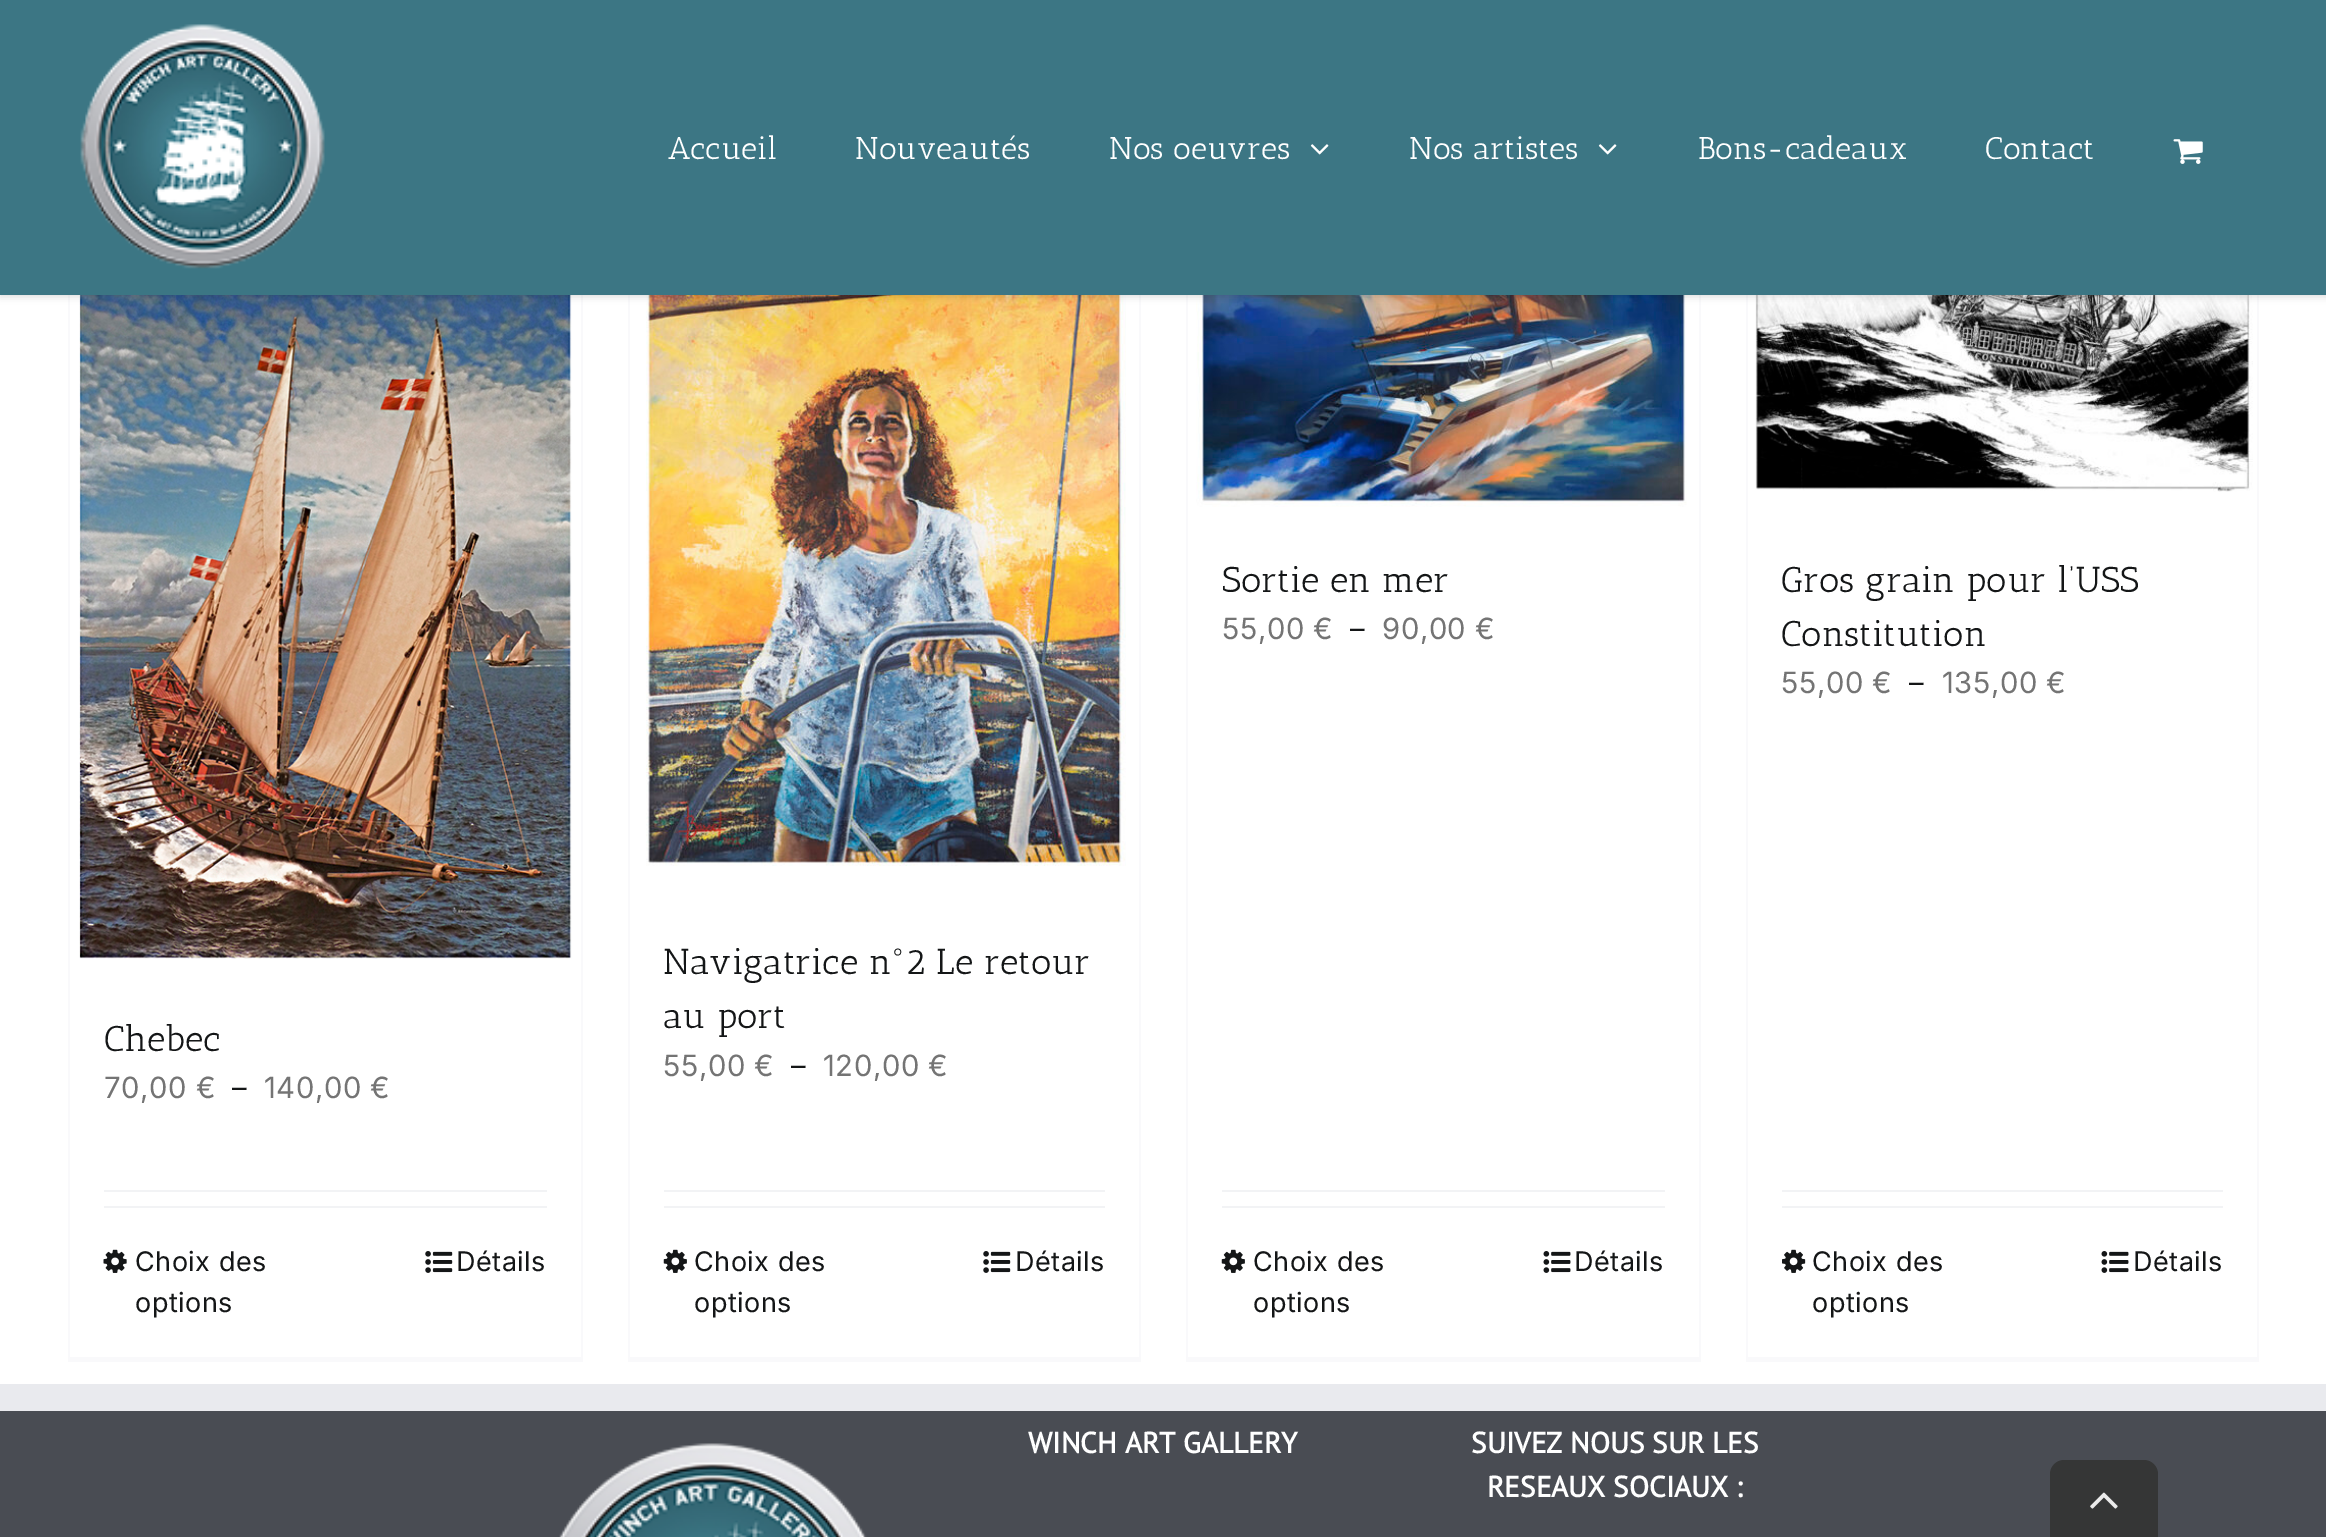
%!PS
<< /PageSize [2326 1537] /PageUsesTransparency true >> setpagedevice
/rgb { 3 { 255 div 3 1 roll } repeat setrgbcolor } def
/font { [ exch dup neg 0 0 3 -1 roll 0 0 ] selectfont } def
/text { moveto show } def
/alpha { dup .setfillconstantalpha .setstrokeconstantalpha } def
/roundrect { 5 dict begin { /r /h /w /y /x } { exch def } forall
  x r add y moveto x w add y 2 copy h add r arct x w add y h add x 1 index r arct
  x y h add x y r arct x y 2 copy exch w add exch r arct closepath end } def
/shadow { 12 dict begin { /a /b /q /h /w /y /x } { exch def } forall gsave /was 0 def
  9 -2 -9 { dup b mul 4 div /e exch def 1 sub .425 mul 2.718 exch exp 1 add a .99 .min exch div /now exch def
    1 1 now sub 1 was sub div sub alpha /was now def
    w h .min e 2 mul add 0 gt { x e sub y e sub w e 2 mul add h e 2 mul add
      q e add b .6 mul add w h .min 2 div e add .min 0 .max roundrect fill } if } for grestore end } def
/picture { 5 dict begin { /h /w /y /x /name } { exch def } forall
  gsave x y translate w h scale
  w h 8 [w 0 0 h 0 0] name (r) file false 3 colorimage grestore end } def
0 .pushpdf14devicefilter
0 1537 translate 1 -1 scale
4 setmiterlimit
255 255 255 rgb
0 0 2326 1537 rectfill
249 249 251 rgb
581 295 2 1066 rectfill
68 1357 515 5 rectfill
68 295 2 1066 rectfill
(img_04.rgb) 79 295 493 664 picture
1139 295 2 1066 rectfill
628 1357 513 5 rectfill
628 295 2 1066 rectfill
(img_07.rgb) 646 295 480 571 picture
1699 295 2 1066 rectfill
1186 1357 515 5 rectfill
1186 295 2 1066 rectfill
(img_09.rgb) 1196 295 491 212 picture
2257 295 2 1066 rectfill
1746 1357 513 5 rectfill
1746 295 2 1066 rectfill
(img_11.rgb) 1755 295 498 197 picture
0 0 0 rgb
0 2 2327 295 0 3.5 0.12 shadow
60 118 132 rgb
0 0 2326 295 rectfill
(img_01.rgb) 80 24 245 245 picture
(img_02.rgb) 1310 144 19 11 picture
(img_02.rgb) 1598 144 19 11 picture
(img_03.rgb) 2173 139 30 25 picture
242 243 245 rgb
104 1190 443 2 rectfill
104 1206 443 2 rectfill
(img_05.rgb) 103 1249 24 24 picture
(img_06.rgb) 425 1251 28 22 picture
664 1190 441 2 rectfill
664 1206 441 2 rectfill
(img_08.rgb) 663 1249 24 24 picture
(img_06.rgb) 983 1251 28 22 picture
1222 1190 443 2 rectfill
1222 1206 443 2 rectfill
(img_08.rgb) 1221 1249 24 24 picture
(img_10.rgb) 1543 1251 28 22 picture
1782 1190 441 2 rectfill
1782 1206 441 2 rectfill
(img_12.rgb) 1782 1249 24 24 picture
(img_10.rgb) 2101 1251 28 22 picture
73 76 83 rgb
0 1411 2326 126 rectfill
233 234 238 rgb
0 1384 2326 27 rectfill
(img_13.rgb) 559 1443 308 94 picture
53 54 54 rgb
2064 1460 moveto 80 0 rlineto 7.5 0 14 6.5 14 14 rcurveto 0 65 rlineto -108 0 rlineto 0 -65 rlineto 0 -7.5 6.5 -14 14 -14 rcurveto closepath fill
(img_14.rgb) 2090 1492 28 17 picture
/AnticSlab-Regular 31.5 font
255 255 255 rgb
(Accueil) 668 159 text
(Nouveautés) 855 159 text
(Nos oeuvres) 1109 159 text
(Nos artistes) 1409 159 text
(Bons-cadeaux) 1698 159 text
(Contact) 1985 159 text
/AnticSlab-Regular 36 font
20 22 23 rgb
(Chebec) 104 1051 text
/Inter-Regular 29.25 font
116 116 116 rgb
104 1098 moveto 0.5 0 (70,00 €) ashow
20 22 23 rgb
232 1098 moveto 0.5 0 (–) ashow
116 116 116 rgb
264 1098 moveto 0.5 0 (140,00 €) ashow
/Inter-Regular 27 font
20 22 23 rgb
135 1271 moveto 0.5 0 (Choix des) ashow
135 1312 moveto 0.5 0 (options) ashow
456 1271 moveto 0.5 0 (Détails) ashow
/AnticSlab-Regular 36 font
(Navigatrice n°2 Le retour) 663 974 text
(au port) 663 1028 text
/Inter-Regular 29.25 font
116 116 116 rgb
663 1076 moveto 0.5 0 (55,00 €) ashow
20 22 23 rgb
791 1076 moveto 0.5 0 (–) ashow
116 116 116 rgb
823 1076 moveto 0.5 0 (120,00 €) ashow
/Inter-Regular 27 font
20 22 23 rgb
694 1271 moveto 0.5 0 (Choix des) ashow
694 1312 moveto 0.5 0 (options) ashow
1015 1271 moveto 0.5 0 (Détails) ashow
/AnticSlab-Regular 36 font
(Sortie en mer) 1222 592 text
/Inter-Regular 29.25 font
116 116 116 rgb
1222 639 moveto 0.5 0 (55,00 €) ashow
20 22 23 rgb
1350 639 moveto 0.5 0 (–) ashow
116 116 116 rgb
1382 639 moveto 0.5 0 (90,00 €) ashow
/Inter-Regular 27 font
20 22 23 rgb
1253 1271 moveto 0.5 0 (Choix des) ashow
1253 1312 moveto 0.5 0 (options) ashow
1574 1271 moveto 0.5 0 (Détails) ashow
/AnticSlab-Regular 36 font
(Gros grain pour l’USS) 1781 592 text
(Constitution) 1781 646 text
/Inter-Regular 29.25 font
116 116 116 rgb
1781 693 moveto 0.5 0 (55,00 €) ashow
20 22 23 rgb
1909 693 moveto 0.5 0 (–) ashow
116 116 116 rgb
1942 693 moveto 0.5 0 (135,00 €) ashow
/Inter-Regular 27 font
20 22 23 rgb
1812 1271 moveto 0.5 0 (Choix des) ashow
1812 1312 moveto 0.5 0 (options) ashow
2133 1271 moveto 0.5 0 (Détails) ashow
/PTSans-Bold 29.25 font
255 255 255 rgb
(WINCH ART GALLERY) 1028 1453 text
(SUIVEZ NOUS SUR LES) 1471 1453 text
(RESEAUX SOCIAUX :) 1487 1497 text
.poppdf14devicefilter showpage
